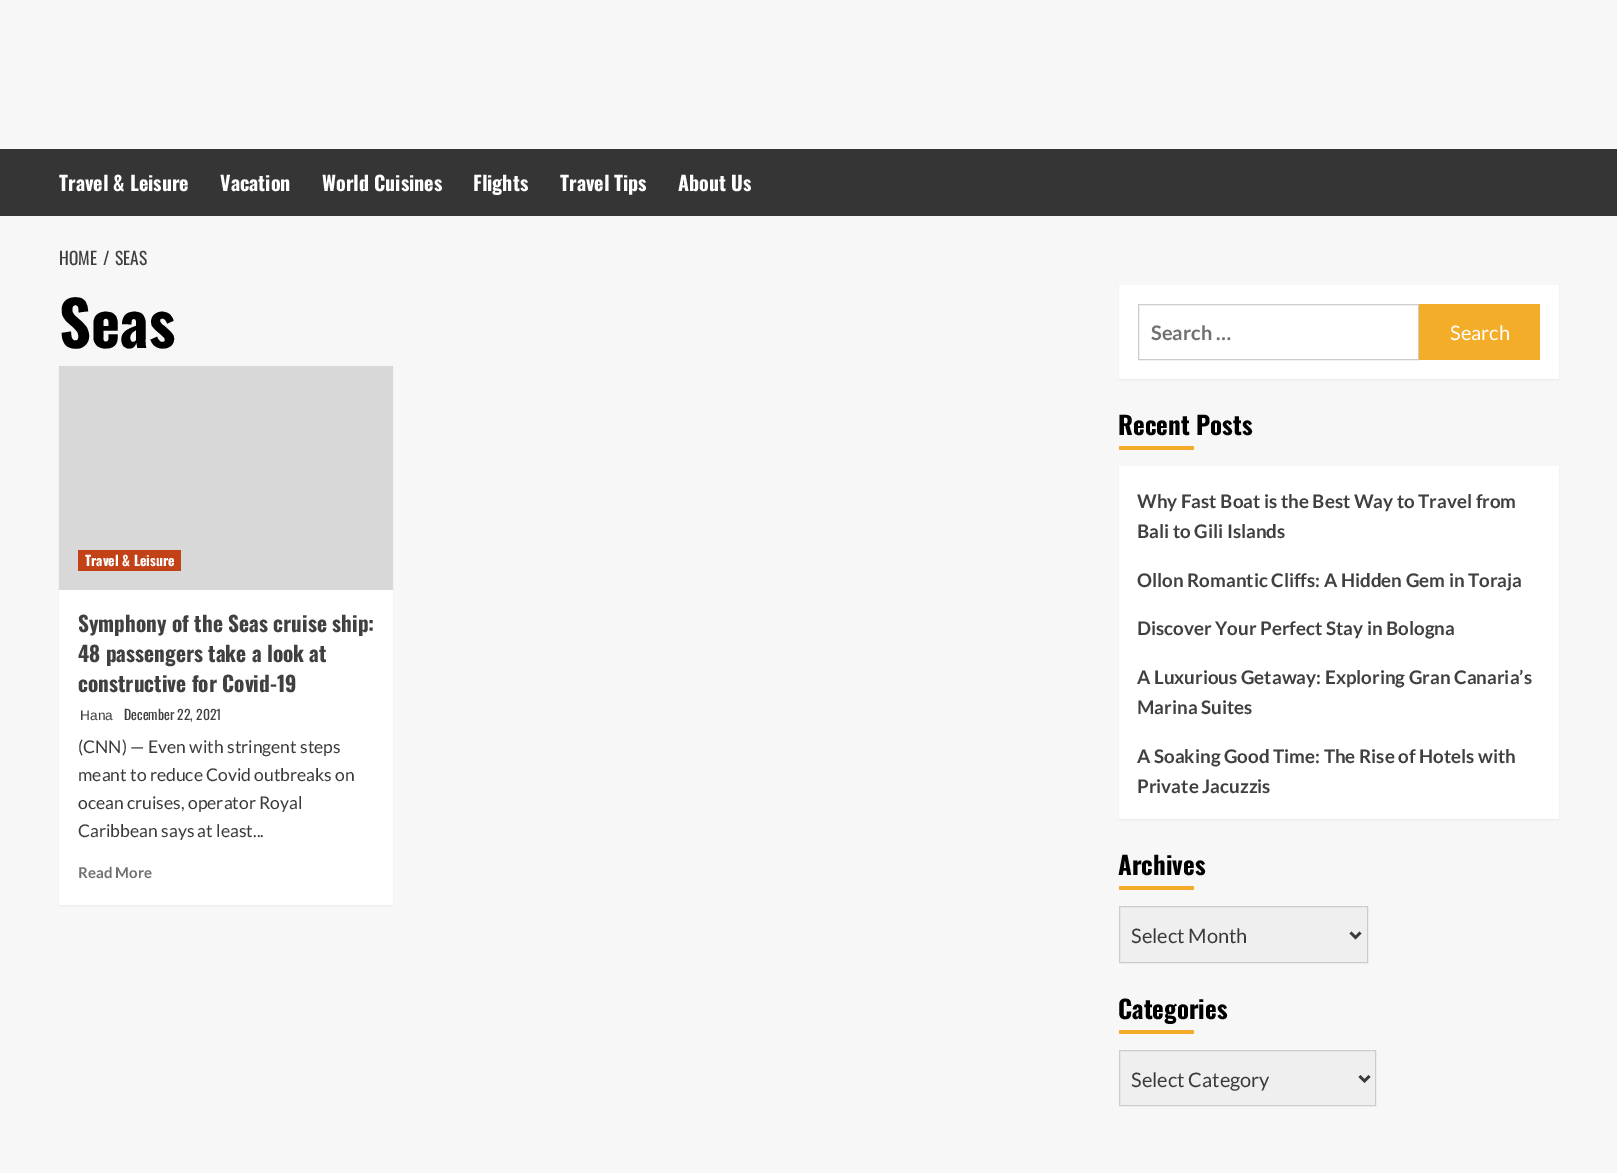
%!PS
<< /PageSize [1617 1173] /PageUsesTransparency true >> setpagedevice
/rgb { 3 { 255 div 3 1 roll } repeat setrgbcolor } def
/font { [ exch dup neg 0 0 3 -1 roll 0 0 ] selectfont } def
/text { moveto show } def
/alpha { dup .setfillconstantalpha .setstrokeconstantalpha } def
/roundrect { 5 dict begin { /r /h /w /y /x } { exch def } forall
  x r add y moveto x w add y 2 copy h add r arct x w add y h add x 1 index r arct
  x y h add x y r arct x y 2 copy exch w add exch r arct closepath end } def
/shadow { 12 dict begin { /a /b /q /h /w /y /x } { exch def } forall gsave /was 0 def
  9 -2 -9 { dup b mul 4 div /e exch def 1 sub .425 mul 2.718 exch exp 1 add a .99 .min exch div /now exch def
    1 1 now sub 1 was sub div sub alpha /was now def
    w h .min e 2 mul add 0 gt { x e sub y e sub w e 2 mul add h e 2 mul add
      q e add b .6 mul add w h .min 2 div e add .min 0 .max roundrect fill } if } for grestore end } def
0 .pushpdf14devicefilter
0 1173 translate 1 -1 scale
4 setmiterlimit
247 247 247 rgb
0 0 1617 1173 rectfill
53 53 53 rgb
0 149 1617 67 rectfill
0 0 0 rgb
59 368 334 538 0 1 0.05 shadow
255 255 255 rgb
59 590 334 315 rectfill
216 216 216 rgb
59 366 334 224 rectfill
195 65 22 rgb
78 550 103 21 rectfill
0 0 0 rgb
1119 286 440 94 0 1 0.05 shadow
255 255 255 rgb
1119 285 440 94 rectfill
204 204 204 rgb
1138.5 304.5 280 55 rectstroke
243 173 41 rgb
1419 304 121 56 rectfill
1119 446 75 4 rectfill
0 0 0 rgb
1119 468 440 352 0 1 0.05 shadow
255 255 255 rgb
1119 466 440 353 rectfill
243 173 41 rgb
1119 886 75 4 rectfill
239 239 239 rgb
1119.5 906.5 moveto 248 0 rlineto 0 56 rlineto -248 0 rlineto closepath gsave fill grestore
204 204 204 rgb
stroke
58 58 58 rgb
2.5 setlinewidth
1350.5 932.5 moveto 5 5 rlineto 5 -5 rlineto stroke
243 173 41 rgb
1119 1030 75 4 rectfill
239 239 239 rgb
1119.5 1050.5 moveto 256 0 rlineto 0 55 rlineto -256 0 rlineto closepath gsave fill grestore
204 204 204 rgb
1 setlinewidth
stroke
58 58 58 rgb
2.5 setlinewidth
1359.5 1076 moveto 5 5 rlineto 5 -5 rlineto stroke
/Oswald-Bold 20 font
255 255 255 rgb
(Travel & Leisure) 59 191 text
(Vacation) 220 191 text
(World Cuisines) 322 191 text
(Flights) 473 191 text
(Travel Tips) 560 191 text
(About Us) 678 191 text
/Oswald-Regular 17.5 font
64 64 64 rgb
(HOME) 59 265 text
(/) 103 265 text
(SEAS) 115 265 text
/Oswald-Bold 62 font
0 0 0 rgb
(Seas) 59 348 text
/Oswald-Bold 13.75 font
255 255 255 rgb
(Travel & Leisure) 85 566 text
/Oswald-Bold 21.25 font
64 64 64 rgb
(Symphony of the Seas cruise ship:) 78 632 text
(48 passengers take a look at) 78 662 text
(constructive for Covid-19) 78 692 text
/LiberationSans-Regular 13.75 font
(Hana) 80 720 text
/Oswald-Regular 13.75 font
(December 22, 2021) 124 720 text
/Lato-Regular 17.5 font
58 58 58 rgb
(\(CNN\) — Even with stringent steps) 78 753 text
(meant to reduce Covid outbreaks on) 78 781 text
(ocean cruises, operator Royal) 78 809 text
(Caribbean says at least...) 78 837 text
/Lato-Bold 15 font
112 112 112 rgb
(Read More) 78 878 text
/Lato-Bold 20 font
(Search …) 1151 340 text
/Lato-Regular 20 font
255 255 255 rgb
(Search) 1450 340 text
/Oswald-Bold 25 font
0 0 0 rgb
(Recent Posts) 1118 435 text
/Lato-Bold 18.75 font
64 64 64 rgb
(Why Fast Boat is the Best Way to Travel from) 1137 508 text
(Bali to Gili Islands) 1137 538 text
(Ollon Romantic Cliffs: A Hidden Gem in Toraja) 1137 587 text
(Discover Your Perfect Stay in Bologna) 1137 635 text
(A Luxurious Getaway: Exploring Gran Canaria’s) 1137 684 text
(Marina Suites) 1137 714 text
(A Soaking Good Time: The Rise of Hotels with) 1137 763 text
(Private Jacuzzis) 1137 793 text
/Oswald-Bold 25 font
0 0 0 rgb
(Archives) 1118 875 text
/Lato-Regular 20 font
58 58 58 rgb
(Select Month) 1131 943 text
/Oswald-Bold 25 font
0 0 0 rgb
(Categories) 1118 1019 text
/Lato-Regular 20 font
58 58 58 rgb
(Select Category) 1131 1087 text
.poppdf14devicefilter showpage
